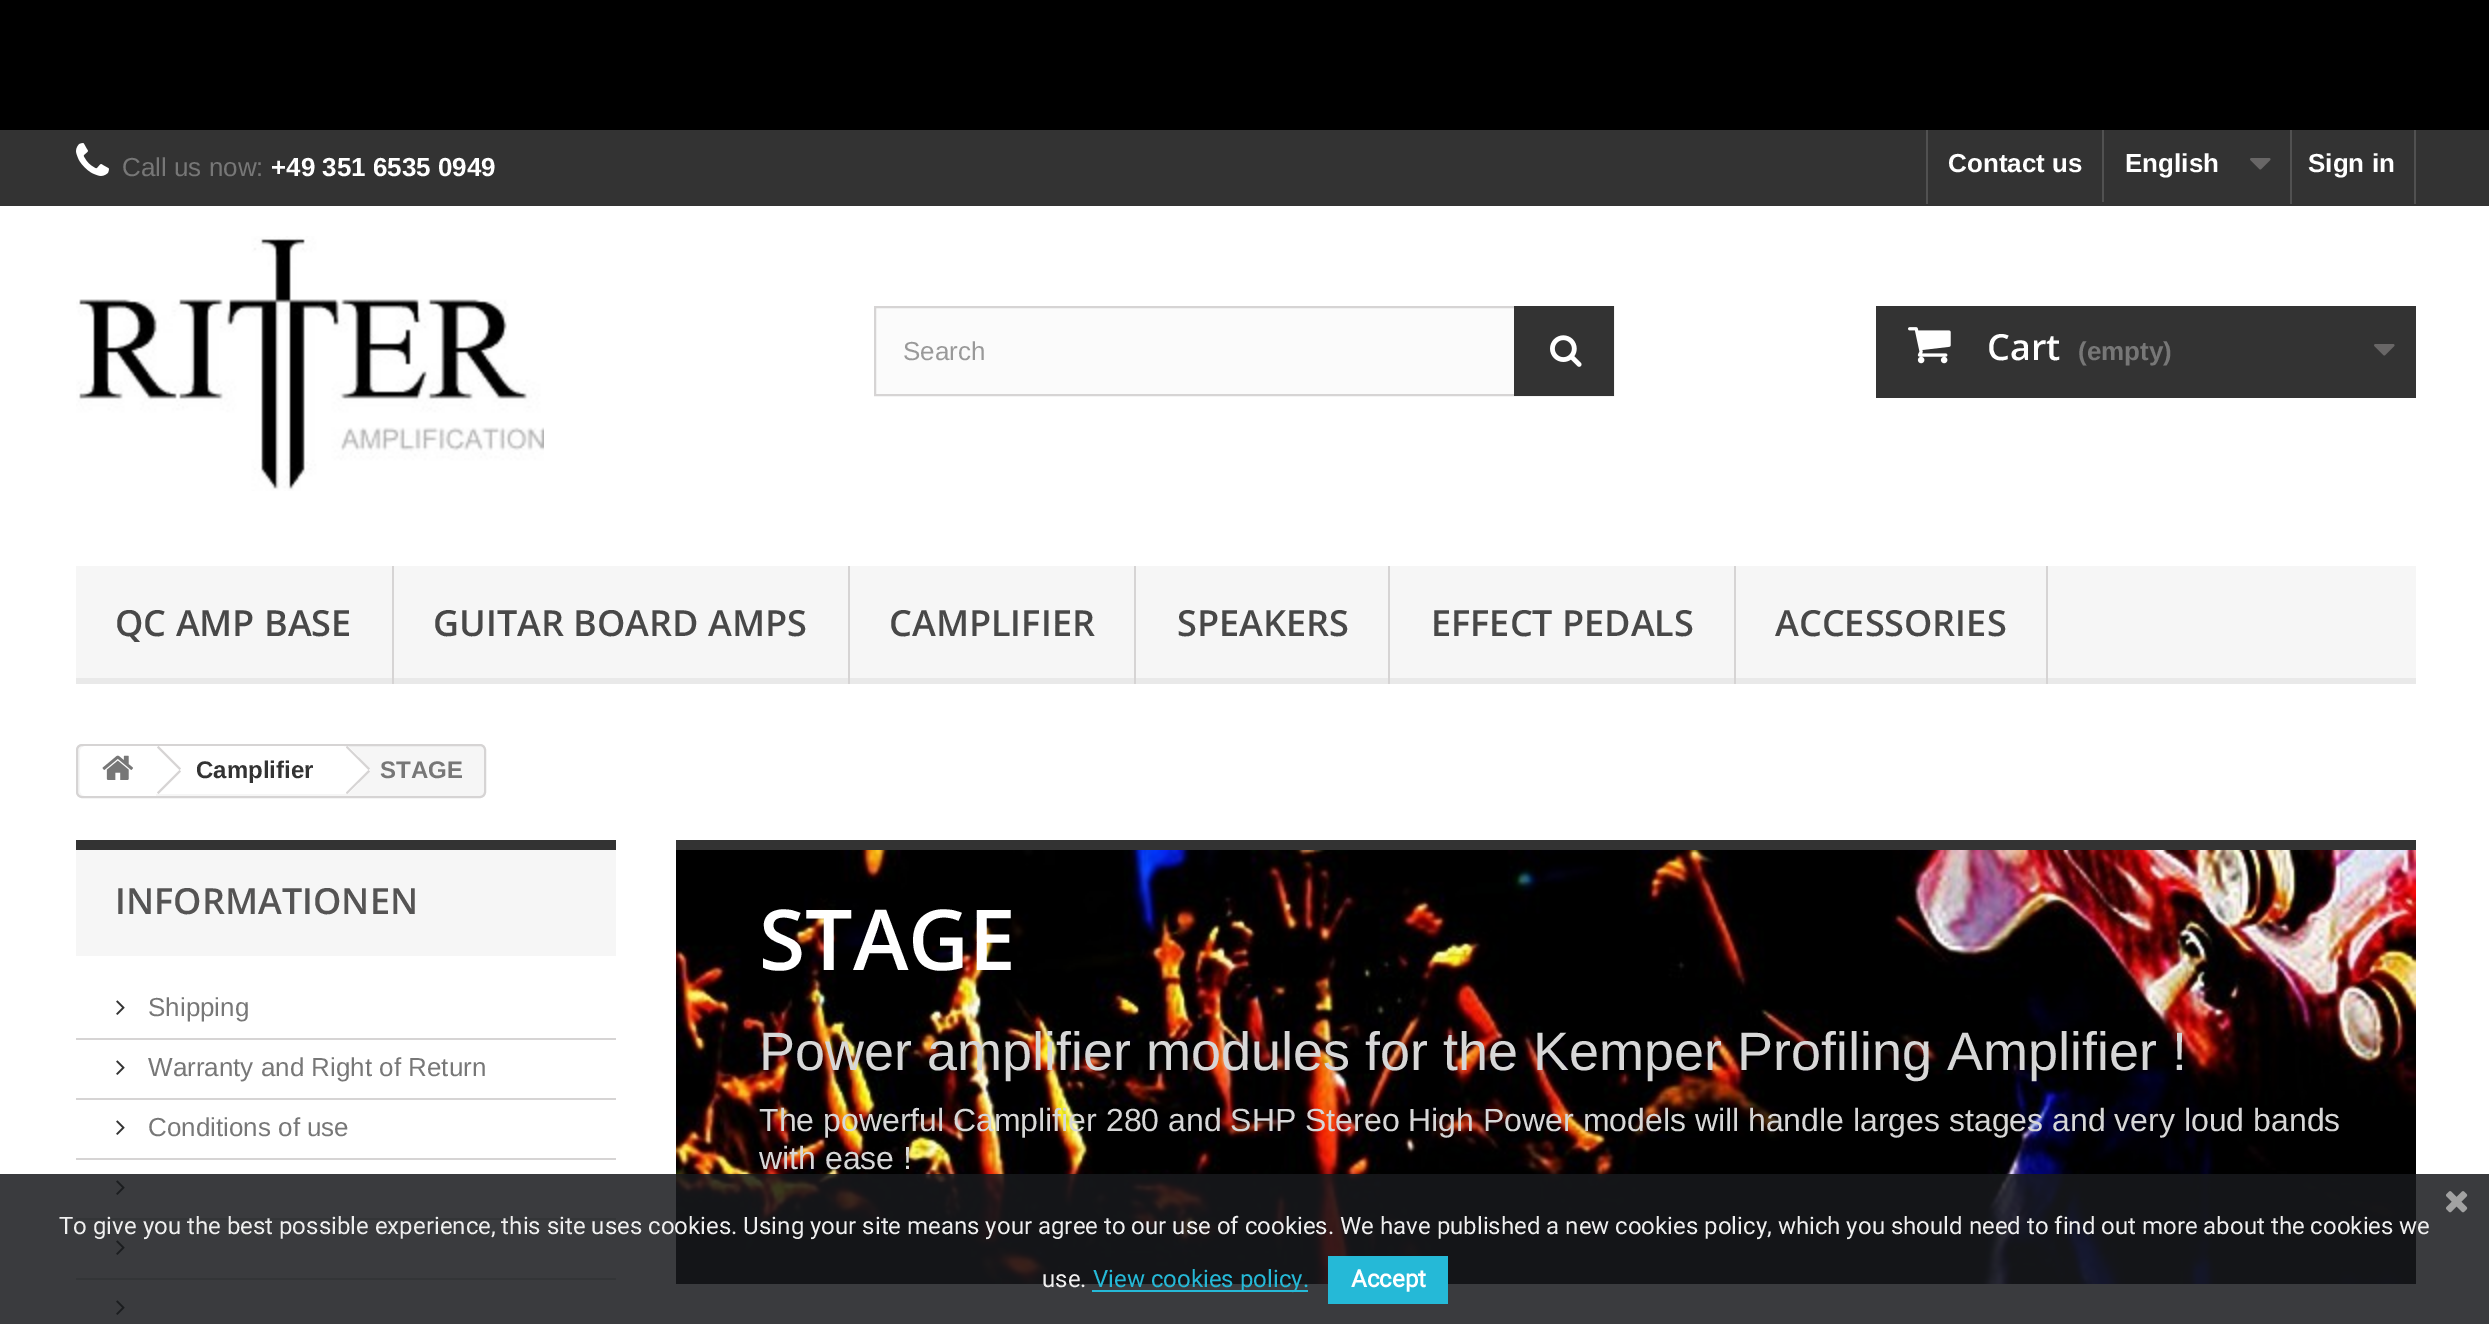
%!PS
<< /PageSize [2489 1324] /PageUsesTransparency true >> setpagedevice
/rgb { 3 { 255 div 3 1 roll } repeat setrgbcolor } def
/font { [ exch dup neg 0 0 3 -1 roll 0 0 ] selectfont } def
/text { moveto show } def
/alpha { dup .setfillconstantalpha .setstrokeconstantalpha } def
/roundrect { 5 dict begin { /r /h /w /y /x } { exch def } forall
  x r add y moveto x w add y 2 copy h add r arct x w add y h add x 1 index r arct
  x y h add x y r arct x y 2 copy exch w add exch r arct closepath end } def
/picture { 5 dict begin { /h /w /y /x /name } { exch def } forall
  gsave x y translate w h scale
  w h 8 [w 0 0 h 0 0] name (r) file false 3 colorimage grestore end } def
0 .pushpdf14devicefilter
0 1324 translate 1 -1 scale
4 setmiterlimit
255 255 255 rgb
0 0 2489 1324 rectfill
0 0 0 rgb
0 0 2489 130 rectfill
51 51 51 rgb
0 130 2489 76 rectfill
(img_01.rgb) 76 143 33 33 picture
81 81 81 rgb
1926 130 2 74 rectfill
2102 130 2 72 rectfill
(img_02.rgb) 2250 158 21 12 picture
2414 130 2 74 rectfill
2290 130 2 74 rectfill
(img_03.rgb) 76 236 468 255 picture
251 251 251 rgb
876 308 638 86 rectfill
214 212 212 rgb
2 setlinewidth
875 307 738 88 rectstroke
51 51 51 rgb
1514 306 100 90 rectfill
(img_04.rgb) 1550 335 32 32 picture
1876 306 540 92 rectfill
(img_05.rgb) 1908 327 43 37 picture
(img_02.rgb) 2374 344 21 12 picture
246 246 246 rgb
76 566 2340 112 rectfill
233 233 233 rgb
76 678 2340 6 rectfill
214 212 212 rgb
392 566 2 118 rectfill
848 566 2 118 rectfill
1134 566 2 118 rectfill
1388 566 2 118 rectfill
1734 566 2 118 rectfill
2046 566 2 118 rectfill
246 246 246 rgb
77 745 408 52 5 roundrect gsave fill grestore
214 212 212 rgb
stroke
255 255 255 rgb
86 746 moveto 70 0 rlineto 0 50 rlineto -70 0 rlineto -3.5 0 -6 -2.5 -6 -6 rcurveto 0 -38 rlineto 0 -3.5 2.5 -6 6 -6 rcurveto closepath fill
(img_06.rgb) 102 755 31 25 picture
156 746 188 48 rectfill
214 212 212 rgb
158.5 746 moveto 22.5 22.5 rlineto -1.5 1.5 rlineto -22.5 -22.5 rlineto closepath 179.5 770 moveto 1.5 1.5 rlineto -22.5 22.5 rlineto -1.5 -1.5 rlineto closepath fill
255 255 255 rgb
349 747 moveto 19 20 rlineto 2 2 2 4 0 6 rcurveto -19 20 rlineto -2 1 -5 1 -6 0 rcurveto -20 -20 rlineto -1 -2 -1 -4 0 -6 rcurveto 20 -20 rlineto 1 -1 4 -1 6 0 rcurveto closepath fill
214 212 212 rgb
347 746 moveto 23 22.5 rlineto -1.5 1.5 rlineto -22.5 -22.5 rlineto closepath 368.5 770 moveto 1.5 1.5 rlineto -23 22.5 rlineto -1 -1.5 rlineto closepath fill
246 246 246 rgb
76 850 540 106 rectfill
51 51 51 rgb
76 840 540 10 rectfill
(img_07.rgb) 116 1000 9 15 picture
214 212 212 rgb
76 1038 540 2 rectfill
(img_07.rgb) 116 1060 9 15 picture
76 1098 540 2 rectfill
(img_07.rgb) 116 1120 9 15 picture
76 1158 540 2 rectfill
(img_07.rgb) 116 1180 9 15 picture
76 1218 540 2 rectfill
(img_07.rgb) 116 1240 9 15 picture
76 1278 540 2 rectfill
(img_07.rgb) 116 1300 9 15 picture
51 51 51 rgb
676 840 1740 10 rectfill
(img_08.rgb) 676 850 1740 434 picture
0.85 alpha
23 25 28 rgb
0 1174 2489 150 rectfill
1 alpha
(img_09.rgb) 2446 1191 22 22 picture
37 185 215 rgb
1092 1290 216 2 rectfill
1328 1256 120 48 rectfill
/LiberationSans-Regular 26 font
119 119 119 rgb
(Call us now:) 122 176 text
/LiberationSans-Bold 26 font
255 255 255 rgb
(+49 351 6535 0949) 271 176 text
(Contact us) 1948 172 text
(English) 2125 172 text
(Sign in) 2308 172 text
/LiberationSans-Regular 26 font
153 153 153 rgb
(Search) 903 360 text
/OpenSans-SemiBold 36 font
255 255 255 rgb
(Cart) 1987 360 text
/LiberationSans-Bold 26 font
119 119 119 rgb
(\(empty\)) 2078 360 text
/OpenSans-SemiBold 36 font
72 72 72 rgb
(QC AMP BASE) 115 636 text
(GUITAR BOARD AMPS) 433 636 text
(CAMPLIFIER) 889 636 text
(SPEAKERS) 1177 636 text
(EFFECT PEDALS) 1431 636 text
(ACCESSORIES) 1775 636 text
/LiberationSans-Bold 24 font
51 51 51 rgb
(Camplifier) 196 778 text
119 119 119 rgb
(STAGE) 380 778 text
/OpenSans-SemiBold 36 font
85 84 84 rgb
(INFORMATIONEN) 115 914 text
/LiberationSans-Regular 26 font
119 119 119 rgb
(Shipping) 148 1016 text
(Warranty and Right of Return) 148 1076 text
(Conditions of use) 148 1136 text
/OpenSans-SemiBold 84 font
255 255 255 rgb
(STAGE) 759 970 text
/LiberationSans-Regular 54 font
215 215 215 rgb
(Power amplifier modules for the Kemper Profiling Amplifier !) 759 1070 text
/LiberationSans-Regular 32 font
(The powerful Camplifier 280 and SHP Stereo High Power models will handle larges stages and very loud bands) 759 1131 text
(with ease !) 759 1169 text
/Roboto-Regular 24 font
239 239 239 rgb
(To give you the best possible experience, this site uses cookies. Using your site means your agree to our use of cookies. We have published a new cookies policy, which you should need to find out more about the cookies we) 59 1234 text
(use.) 1042 1287 text
37 185 215 rgb
(View cookies policy.) 1093 1287 text
/Roboto-Bold 24 font
255 255 255 rgb
(Accept) 1351 1287 text
.poppdf14devicefilter showpage
